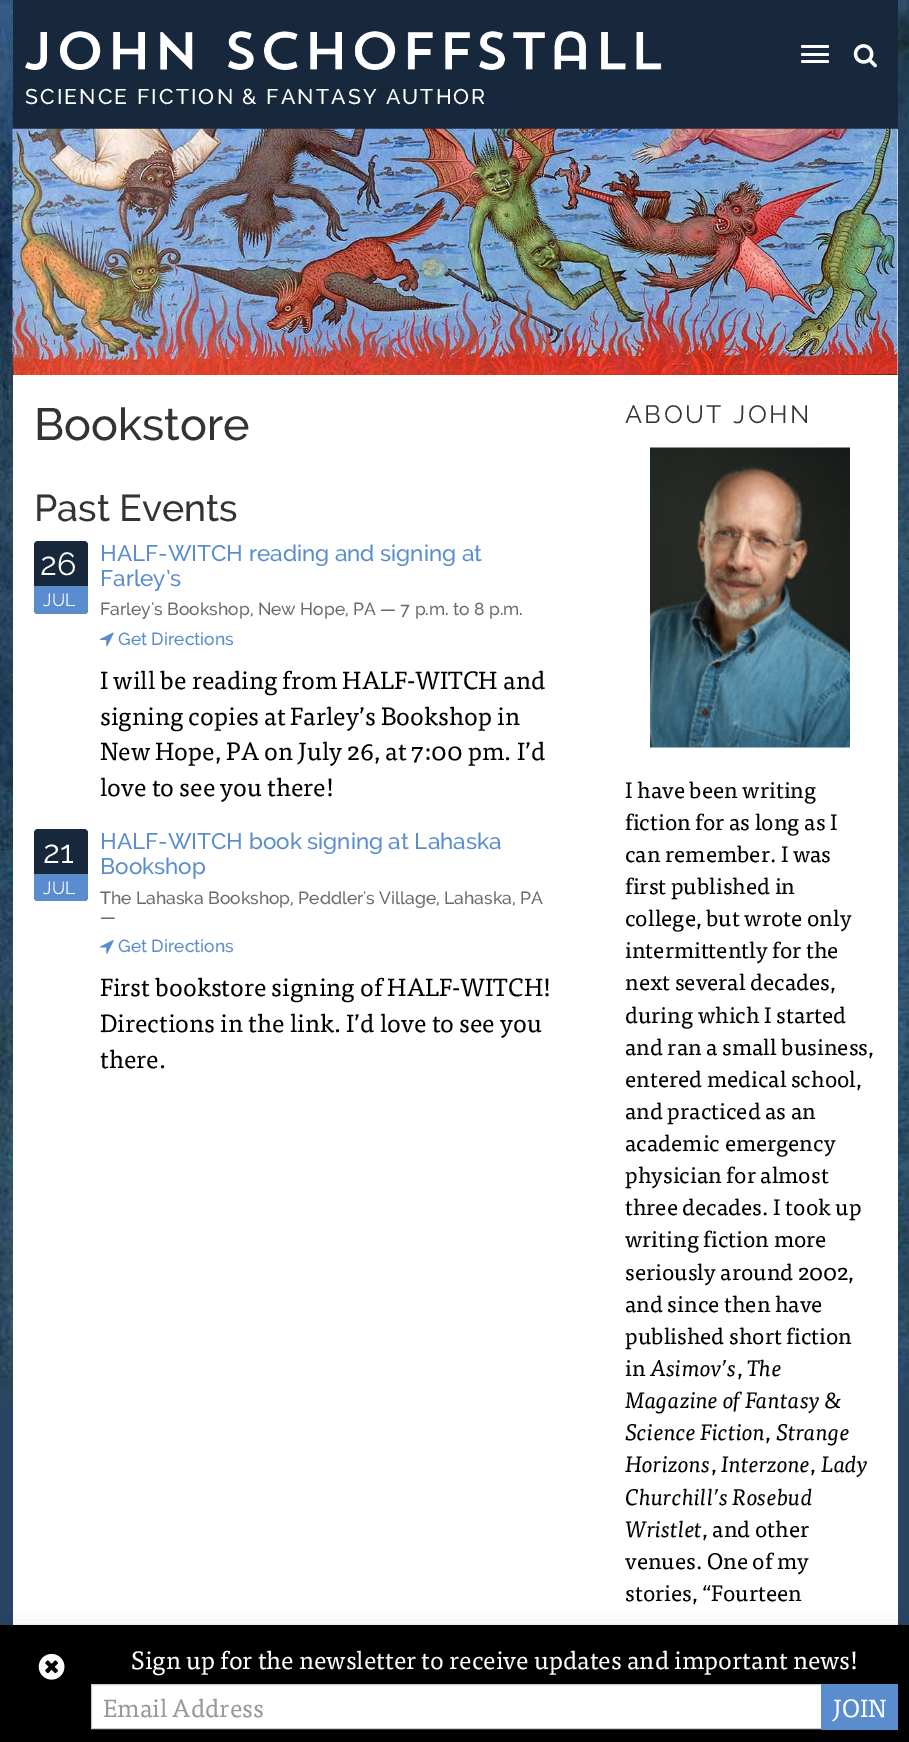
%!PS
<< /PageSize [909 1742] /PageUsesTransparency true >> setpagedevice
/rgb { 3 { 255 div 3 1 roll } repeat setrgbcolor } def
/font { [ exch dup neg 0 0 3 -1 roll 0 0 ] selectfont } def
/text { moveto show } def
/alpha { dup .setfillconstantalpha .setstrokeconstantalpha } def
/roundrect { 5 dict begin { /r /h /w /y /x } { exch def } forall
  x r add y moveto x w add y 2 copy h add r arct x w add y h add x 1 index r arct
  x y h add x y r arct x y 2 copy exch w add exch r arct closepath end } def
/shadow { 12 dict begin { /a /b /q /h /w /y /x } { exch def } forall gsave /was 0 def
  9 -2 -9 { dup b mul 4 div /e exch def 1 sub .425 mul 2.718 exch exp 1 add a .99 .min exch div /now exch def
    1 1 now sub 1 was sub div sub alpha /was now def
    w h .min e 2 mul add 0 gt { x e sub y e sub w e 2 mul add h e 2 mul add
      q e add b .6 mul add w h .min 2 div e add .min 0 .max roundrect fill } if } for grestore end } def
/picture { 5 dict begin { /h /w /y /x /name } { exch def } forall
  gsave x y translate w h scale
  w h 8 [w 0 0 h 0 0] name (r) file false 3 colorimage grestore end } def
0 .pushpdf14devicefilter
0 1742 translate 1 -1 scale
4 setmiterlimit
42 68 100 rgb
0 0 909 1742 rectfill
(img_01.rgb) 0 0 909 1402 picture
255 255 255 rgb
13 129 885 1496 rectfill
24 40 60 rgb
13 0 885 129 rectfill
255 255 255 rgb
801 45 28 3 1.5 roundrect fill
801 53 28 3 1.5 roundrect fill
801 60 28 3 1.5 roundrect fill
(img_02.rgb) 853 44 24 24 picture
(img_03.rgb) 25 31 637 39 picture
(img_04.rgb) 12 128 886 247 picture
24 40 60 rgb
34 541 54 73 4 roundrect fill
89 141 206 rgb
34 586 moveto 54 0 rlineto 0 24 rlineto 0 2 -2 4 -4 4 rcurveto -46 0 rlineto -2 0 -4 -2 -4 -4 rcurveto closepath fill
(img_05.rgb) 100 632 14 15 picture
24 40 60 rgb
34 829 54 72 4 roundrect fill
89 141 206 rgb
34 874 moveto 54 0 rlineto 0 23 rlineto 0 2 -2 4 -4 4 rcurveto -46 0 rlineto -2 0 -4 -2 -4 -4 rcurveto closepath fill
(img_06.rgb) 100 940 14 14 picture
(img_07.rgb) 650 447 200 301 picture
0 0 0 rgb
0 1629 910 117 0 7.5 0.2 shadow
0 1625 909 117 rectfill
(img_08.rgb) 38 1653 27 27 picture
255 255 255 rgb
92 1685 729 43 rectfill
204 204 204 rgb
91.5 1684.5 731 44 rectstroke
89 141 206 rgb
821 1684 77 46 rectfill
/Raleway-Medium 21.25 font
255 255 255 rgb
25 104 moveto 2.1 0 (SCIENCE FICTION & FANTASY AUTHOR) ashow
/Raleway-Medium 45 font
51 51 51 rgb
(Bookstore) 34 440 text
/Raleway-Medium 37.5 font
(Past Events) 34 521 text
/Raleway-Regular 32 font
255 255 255 rgb
(26) 40 575 text
/Raleway-Regular 17.5 font
(JUL) 43 606 text
/Raleway-Medium 22.5 font
89 141 206 rgb
(HALF-WITCH reading and signing at) 100 561 text
(Farley’s) 100 586 text
/Raleway-Medium 17.5 font
109 106 106 rgb
(Farley's Bookshop, New Hope, PA — 7 p.m. to 8 p.m.) 100 615 text
89 141 206 rgb
(Get Directions) 118 645 text
/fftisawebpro-Regular 25 font
0 0 0 rgb
(I will be reading from HALF-WITCH and) 100 689 text
(signing copies at Farley’s Bookshop in) 100 725 text
(New Hope, PA on July 26, at 7:00 pm. I’d) 100 760 text
(love to see you there!) 100 796 text
/Raleway-Regular 32 font
255 255 255 rgb
(21) 43 863 text
/Raleway-Regular 17.5 font
(JUL) 43 894 text
/Raleway-Medium 22.5 font
89 141 206 rgb
(HALF-WITCH book signing at Lahaska) 100 849 text
(Bookshop) 100 874 text
/Raleway-Medium 17.5 font
109 106 106 rgb
(The Lahaska Bookshop, Peddler's Village, Lahaska, PA) 100 904 text
(—) 100 923 text
89 141 206 rgb
(Get Directions) 118 952 text
/fftisawebpro-Regular 25 font
0 0 0 rgb
(First bookstore signing of HALF-WITCH!) 100 996 text
(Directions in the link. I’d love to see you) 100 1032 text
(there.) 100 1068 text
/Raleway-Regular 25 font
51 51 51 rgb
625 423 moveto 2.5 0 (ABOUT JOHN) ashow
/fftisawebpro-Regular 22.5 font
0 0 0 rgb
(I have been writing) 625 798 text
(fiction for as long as I) 625 830 text
(can remember. I was) 625 862 text
(first published in) 625 894 text
(college, but wrote only) 625 926 text
(intermittently for the) 625 958 text
(next several decades,) 625 990 text
(during which I started) 625 1023 text
(and ran a small business,) 625 1055 text
(entered medical school,) 625 1087 text
(and practiced as an) 625 1119 text
(academic emergency) 625 1151 text
(physician for almost) 625 1183 text
(three decades. I took up) 625 1215 text
(writing fiction more) 625 1247 text
(seriously around 2002,) 625 1280 text
(and since then have) 625 1312 text
(published short fiction) 625 1344 text
(in) 625 1376 text
/fftisawebpro-Italic 22.5 font
(Asimov’s) 650 1376 text
/fftisawebpro-Regular 22.5 font
(,) 737 1376 text
/fftisawebpro-Italic 22.5 font
(The) 747 1376 text
(Magazine of Fantasy &) 625 1408 text
(Science Fiction) 625 1440 text
/fftisawebpro-Regular 22.5 font
(,) 765 1440 text
/fftisawebpro-Italic 22.5 font
(Strange) 776 1440 text
(Horizons) 625 1472 text
/fftisawebpro-Regular 22.5 font
(,) 711 1472 text
/fftisawebpro-Italic 22.5 font
(Interzone) 721 1472 text
/fftisawebpro-Regular 22.5 font
(,) 810 1472 text
/fftisawebpro-Italic 22.5 font
(Lady) 821 1472 text
(Churchill’s Rosebud) 625 1505 text
(Wristlet) 625 1537 text
/fftisawebpro-Regular 22.5 font
(, and other) 702 1537 text
(venues. One of my) 625 1569 text
(stories, “Fourteen) 625 1601 text
/fftisawebpro-Regular 25 font
255 255 255 rgb
(Sign up for the newsletter to receive updates and important news!) 131 1669 text
153 153 153 rgb
(Email Address) 103 1717 text
255 255 255 rgb
(JOIN) 833 1717 text
.poppdf14devicefilter showpage
